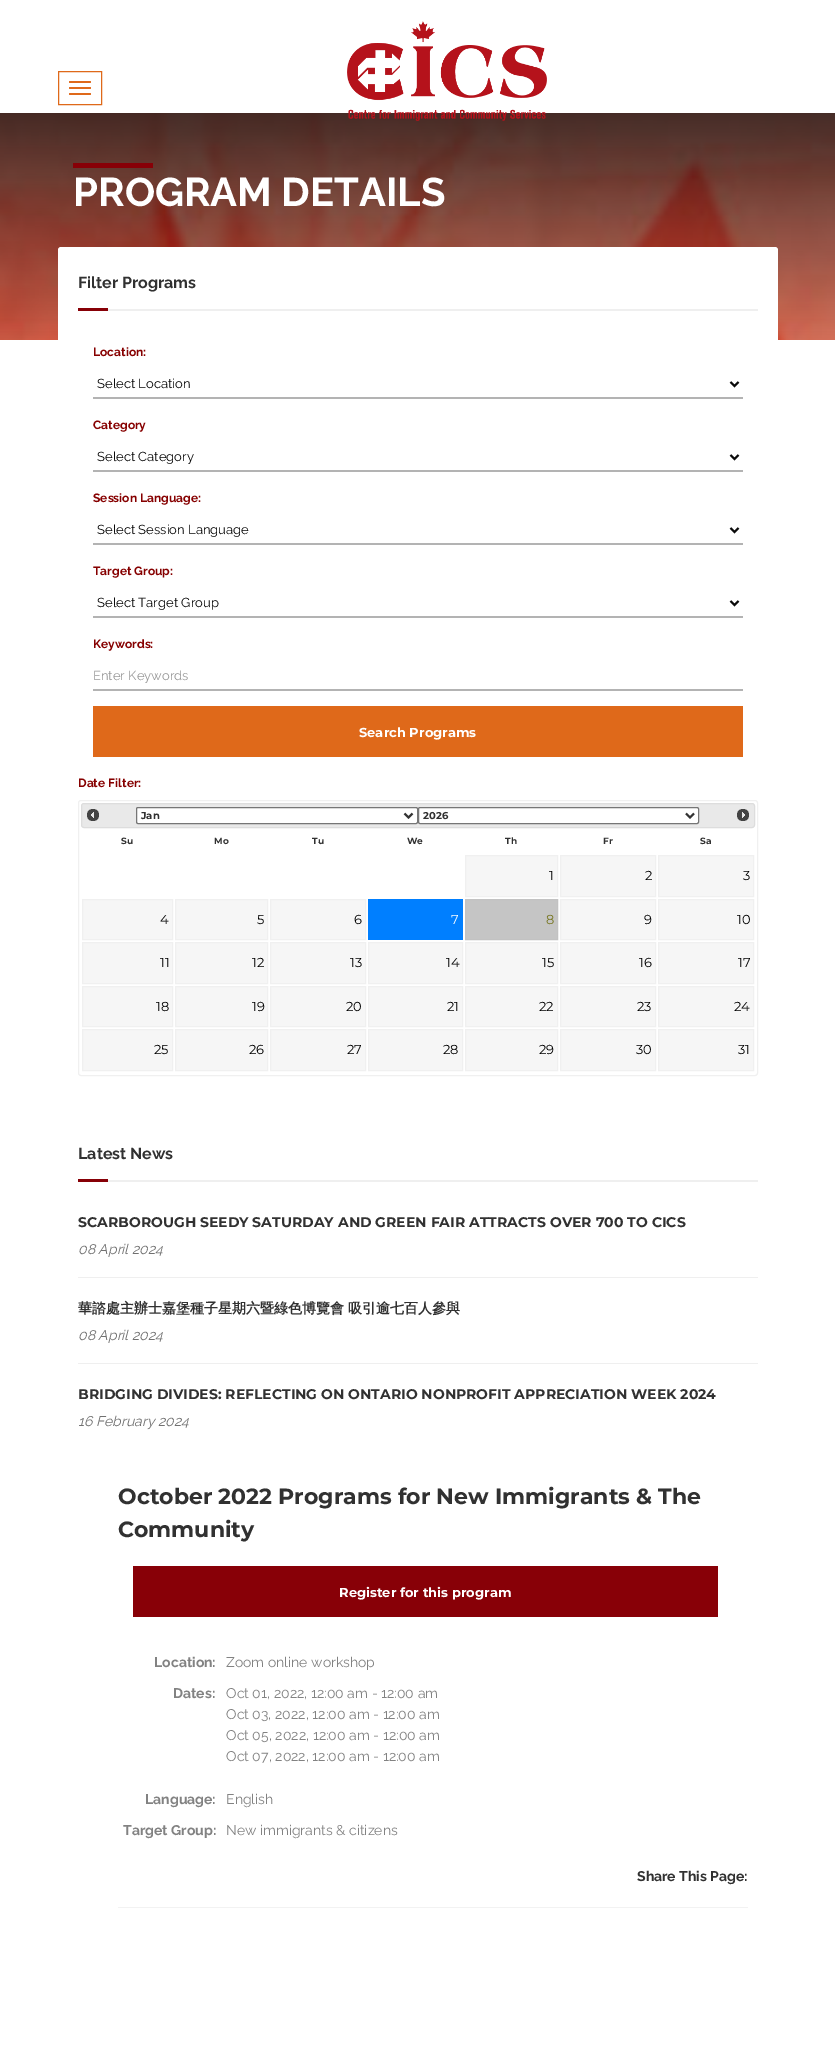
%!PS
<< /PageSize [835 2063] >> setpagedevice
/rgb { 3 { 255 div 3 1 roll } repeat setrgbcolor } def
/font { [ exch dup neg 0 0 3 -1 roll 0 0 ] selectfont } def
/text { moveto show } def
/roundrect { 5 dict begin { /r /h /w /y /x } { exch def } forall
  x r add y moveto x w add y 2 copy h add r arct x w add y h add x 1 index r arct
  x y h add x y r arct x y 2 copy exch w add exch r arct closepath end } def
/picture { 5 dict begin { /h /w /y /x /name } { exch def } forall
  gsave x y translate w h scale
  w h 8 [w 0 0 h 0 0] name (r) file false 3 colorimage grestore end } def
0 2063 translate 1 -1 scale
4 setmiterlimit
255 255 255 rgb
0 0 835 2063 rectfill
223 105 26 rgb
58.5 71.5 43 33 rectstroke
69 81 22 2 1 roundrect fill
69 87 22 2 1 roundrect fill
69 93 22 2 1 roundrect fill
(img_02.rgb) 0 113 835 227 picture
(img_01.rgb) 347 21 200 100 picture
136 0 7 rgb
73 163 80 5 rectfill
255 255 255 rgb
58 247 720 1233 3 roundrect fill
135 0 7 rgb
78 308 30 3 rectfill
239 239 239 rgb
108 309 650 2 rectfill
179 179 179 rgb
93 397 650 2 rectfill
10 10 10 rgb
2 setlinewidth
730.5 382 moveto 4 4 rlineto 4 -4 rlineto stroke
179 179 179 rgb
93 470 650 2 rectfill
10 10 10 rgb
730.5 455 moveto 4 4 rlineto 4 -4 rlineto stroke
179 179 179 rgb
93 543 650 2 rectfill
10 10 10 rgb
730.5 528 moveto 4 4 rlineto 4 -4 rlineto stroke
179 179 179 rgb
93 616 650 2 rectfill
10 10 10 rgb
730.5 601 moveto 4 4 rlineto 4 -4 rlineto stroke
179 179 179 rgb
93 689 650 2 rectfill
223 105 26 rgb
93 706 650 51 rectfill
240 240 240 rgb
1 setlinewidth
78.5 800.5 679 275 2.5 roundrect stroke
233 233 233 rgb
81.5 803.5 673 24 2.5 roundrect gsave fill grestore
221 221 221 rgb
stroke
(img_03.rgb) 87 809 12 12 picture
255 255 255 rgb
136.5 807.5 281 16 1.5 roundrect gsave fill grestore
118 118 118 rgb
stroke
51 51 51 rgb
2 setlinewidth
404.5 813.5 moveto 4 4 rlineto 4 -4 rlineto stroke
255 255 255 rgb
418.5 807.5 280 16 1.5 roundrect gsave fill grestore
118 118 118 rgb
1 setlinewidth
stroke
51 51 51 rgb
2 setlinewidth
686 813.5 moveto 4 4 rlineto 4 -4 rlineto stroke
(img_04.rgb) 737 809 12 12 picture
246 246 246 rgb
465.5 855.5 moveto 92 0 rlineto 0 41 rlineto -92 0 rlineto closepath gsave fill grestore
240 240 240 rgb
1 setlinewidth
stroke
246 246 246 rgb
560.5 855.5 moveto 95 0 rlineto 0 41 rlineto -95 0 rlineto closepath gsave fill grestore
240 240 240 rgb
stroke
246 246 246 rgb
658.5 855.5 moveto 95 0 rlineto 0 41 rlineto -95 0 rlineto closepath gsave fill grestore
240 240 240 rgb
stroke
246 246 246 rgb
82.5 899.5 moveto 90 0 rlineto 0 40 rlineto -90 0 rlineto closepath gsave fill grestore
240 240 240 rgb
stroke
246 246 246 rgb
175.5 899.5 moveto 92 0 rlineto 0 40 rlineto -92 0 rlineto closepath gsave fill grestore
240 240 240 rgb
stroke
246 246 246 rgb
270.5 899.5 moveto 95 0 rlineto 0 40 rlineto -95 0 rlineto closepath gsave fill grestore
240 240 240 rgb
stroke
0 127 255 rgb
368 899 95 41 rectfill
197 197 197 rgb
465.5 899.5 moveto 92 0 rlineto 0 40 rlineto -92 0 rlineto closepath gsave fill grestore
194 194 194 rgb
stroke
246 246 246 rgb
560.5 899.5 moveto 95 0 rlineto 0 40 rlineto -95 0 rlineto closepath gsave fill grestore
240 240 240 rgb
stroke
246 246 246 rgb
658.5 899.5 moveto 95 0 rlineto 0 40 rlineto -95 0 rlineto closepath gsave fill grestore
240 240 240 rgb
stroke
246 246 246 rgb
82.5 942.5 moveto 90 0 rlineto 0 41 rlineto -90 0 rlineto closepath gsave fill grestore
240 240 240 rgb
stroke
246 246 246 rgb
175.5 942.5 moveto 92 0 rlineto 0 41 rlineto -92 0 rlineto closepath gsave fill grestore
240 240 240 rgb
stroke
246 246 246 rgb
270.5 942.5 moveto 95 0 rlineto 0 41 rlineto -95 0 rlineto closepath gsave fill grestore
240 240 240 rgb
stroke
246 246 246 rgb
368.5 942.5 moveto 94 0 rlineto 0 41 rlineto -94 0 rlineto closepath gsave fill grestore
240 240 240 rgb
stroke
246 246 246 rgb
465.5 942.5 moveto 92 0 rlineto 0 41 rlineto -92 0 rlineto closepath gsave fill grestore
240 240 240 rgb
stroke
246 246 246 rgb
560.5 942.5 moveto 95 0 rlineto 0 41 rlineto -95 0 rlineto closepath gsave fill grestore
240 240 240 rgb
stroke
246 246 246 rgb
658.5 942.5 moveto 95 0 rlineto 0 41 rlineto -95 0 rlineto closepath gsave fill grestore
240 240 240 rgb
stroke
246 246 246 rgb
82.5 986.5 moveto 90 0 rlineto 0 40 rlineto -90 0 rlineto closepath gsave fill grestore
240 240 240 rgb
stroke
246 246 246 rgb
175.5 986.5 moveto 92 0 rlineto 0 40 rlineto -92 0 rlineto closepath gsave fill grestore
240 240 240 rgb
stroke
246 246 246 rgb
270.5 986.5 moveto 95 0 rlineto 0 40 rlineto -95 0 rlineto closepath gsave fill grestore
240 240 240 rgb
stroke
246 246 246 rgb
368.5 986.5 moveto 94 0 rlineto 0 40 rlineto -94 0 rlineto closepath gsave fill grestore
240 240 240 rgb
stroke
246 246 246 rgb
465.5 986.5 moveto 92 0 rlineto 0 40 rlineto -92 0 rlineto closepath gsave fill grestore
240 240 240 rgb
stroke
246 246 246 rgb
560.5 986.5 moveto 95 0 rlineto 0 40 rlineto -95 0 rlineto closepath gsave fill grestore
240 240 240 rgb
stroke
246 246 246 rgb
658.5 986.5 moveto 95 0 rlineto 0 40 rlineto -95 0 rlineto closepath gsave fill grestore
240 240 240 rgb
stroke
246 246 246 rgb
82.5 1029.5 moveto 90 0 rlineto 0 41 rlineto -90 0 rlineto closepath gsave fill grestore
240 240 240 rgb
stroke
246 246 246 rgb
175.5 1029.5 moveto 92 0 rlineto 0 41 rlineto -92 0 rlineto closepath gsave fill grestore
240 240 240 rgb
stroke
246 246 246 rgb
270.5 1029.5 moveto 95 0 rlineto 0 41 rlineto -95 0 rlineto closepath gsave fill grestore
240 240 240 rgb
stroke
246 246 246 rgb
368.5 1029.5 moveto 94 0 rlineto 0 41 rlineto -94 0 rlineto closepath gsave fill grestore
240 240 240 rgb
stroke
246 246 246 rgb
465.5 1029.5 moveto 92 0 rlineto 0 41 rlineto -92 0 rlineto closepath gsave fill grestore
240 240 240 rgb
stroke
246 246 246 rgb
560.5 1029.5 moveto 95 0 rlineto 0 41 rlineto -95 0 rlineto closepath gsave fill grestore
240 240 240 rgb
stroke
246 246 246 rgb
658.5 1029.5 moveto 95 0 rlineto 0 41 rlineto -95 0 rlineto closepath gsave fill grestore
240 240 240 rgb
stroke
135 0 7 rgb
78 1179 30 3 rectfill
239 239 239 rgb
108 1180 650 2 rectfill
78 1277 680 1 rectfill
78 1363 680 1 rectfill
136 0 7 rgb
133 1566 585 51 rectfill
242 242 242 rgb
118 1907 630 1 rectfill
/Raleway-Bold 40 font
255 255 255 rgb
(PROGRAM DETAILS) 73 206 text
/Raleway-Bold 16 font
49 49 49 rgb
(Filter Programs) 78 288 text
/Raleway-Bold 12 font
134 0 0 rgb
(Location:) 93 356 text
/Raleway-Regular 13 font
10 10 10 rgb
(Select Location) 97 388 text
/Raleway-Bold 12 font
134 0 0 rgb
(Category) 93 429 text
/Raleway-Regular 13 font
10 10 10 rgb
(Select Category) 97 461 text
/Raleway-Bold 12 font
134 0 0 rgb
(Session Language:) 93 502 text
/Raleway-Regular 13 font
10 10 10 rgb
(Select Session Language) 97 534 text
/Raleway-Bold 12 font
134 0 0 rgb
(Target Group:) 93 575 text
/Raleway-Regular 13 font
10 10 10 rgb
(Select Target Group) 97 607 text
/Raleway-Bold 12 font
134 0 0 rgb
(Keywords:) 93 648 text
/Raleway-Regular 13 font
153 153 153 rgb
(Enter Keywords) 93 680 text
/Montserrat-Bold 13 font
255 255 255 rgb
(Search Programs) 359 737 text
/Raleway-Bold 12 font
134 0 0 rgb
(Date Filter:) 78 787 text
/Montserrat-Bold 10 font
49 49 49 rgb
(Jan) 141 819 text
(2026) 423 819 text
/Montserrat-Bold 9 font
(Su) 121 844 text
(Mo) 214 844 text
(Tu) 312 844 text
(We) 407 844 text
(Th) 505 844 text
(Fr) 603 844 text
(Sa) 700 844 text
/Montserrat-Regular 13 font
0 0 0 rgb
(1) 549 880 text
(2) 645 880 text
(3) 743 880 text
(4) 160 924 text
(5) 257 924 text
(6) 354 924 text
255 255 255 rgb
(7) 451 924 text
119 118 32 rgb
(8) 546 924 text
0 0 0 rgb
(9) 644 924 text
(10) 737 924 text
(11) 160 967 text
(12) 252 967 text
(13) 350 967 text
(14) 446 967 text
(15) 542 967 text
(16) 639 967 text
(17) 738 967 text
(18) 156 1011 text
(19) 252 1011 text
(20) 346 1011 text
(21) 447 1011 text
(22) 539 1011 text
(23) 637 1011 text
(24) 734 1011 text
(25) 154 1054 text
(26) 249 1054 text
(27) 347 1054 text
(28) 443 1054 text
(29) 539 1054 text
(30) 636 1054 text
(31) 738 1054 text
/Raleway-Bold 16 font
49 49 49 rgb
(Latest News) 78 1159 text
/Montserrat-Bold 14 font
(SCARBOROUGH SEEDY SATURDAY AND GREEN FAIR ATTRACTS OVER 700 TO CICS) 78 1227 text
/Raleway-Italic 14 font
112 112 112 rgb
(08 April 2024) 78 1254 text
/WenQuanYiZenHei-Bold 14 font
49 49 49 rgb
(華諮處主辦士嘉堡種子星期六暨綠色博覽會 吸引逾七百人參與) 78 1313 text
/Raleway-Italic 14 font
112 112 112 rgb
(08 April 2024) 78 1340 text
/Montserrat-Bold 14 font
49 49 49 rgb
(BRIDGING DIVIDES: REFLECTING ON ONTARIO NONPROFIT APPRECIATION WEEK 2024) 78 1399 text
/Raleway-Italic 14 font
112 112 112 rgb
(16 February 2024) 78 1426 text
/Montserrat-Bold 22 font
49 49 49 rgb
(October 2022 Programs for New Immigrants & The) 118 1504 text
(Community) 118 1537 text
/Montserrat-Bold 13 font
255 255 255 rgb
(Register for this program) 339 1597 text
/Raleway-Bold 14 font
130 130 130 rgb
(Location:) 154 1667 text
/Raleway-Regular 14 font
(Zoom online workshop) 226 1667 text
/Raleway-Bold 14 font
(Dates:) 173 1698 text
/Raleway-Regular 14 font
(Oct 01, 2022, 12:00 am - 12:00 am) 226 1698 text
(Oct 03, 2022, 12:00 am - 12:00 am) 226 1719 text
(Oct 05, 2022, 12:00 am - 12:00 am) 226 1740 text
(Oct 07, 2022, 12:00 am - 12:00 am) 226 1761 text
/Raleway-Bold 14 font
(Language:) 145 1804 text
/Raleway-Regular 14 font
(English) 226 1804 text
/Raleway-Bold 14 font
(Target Group:) 123 1835 text
/Raleway-Regular 14 font
(New immigrants & citizens) 226 1835 text
/Raleway-Bold 14 font
49 49 49 rgb
(Share This Page:) 637 1881 text
showpage
